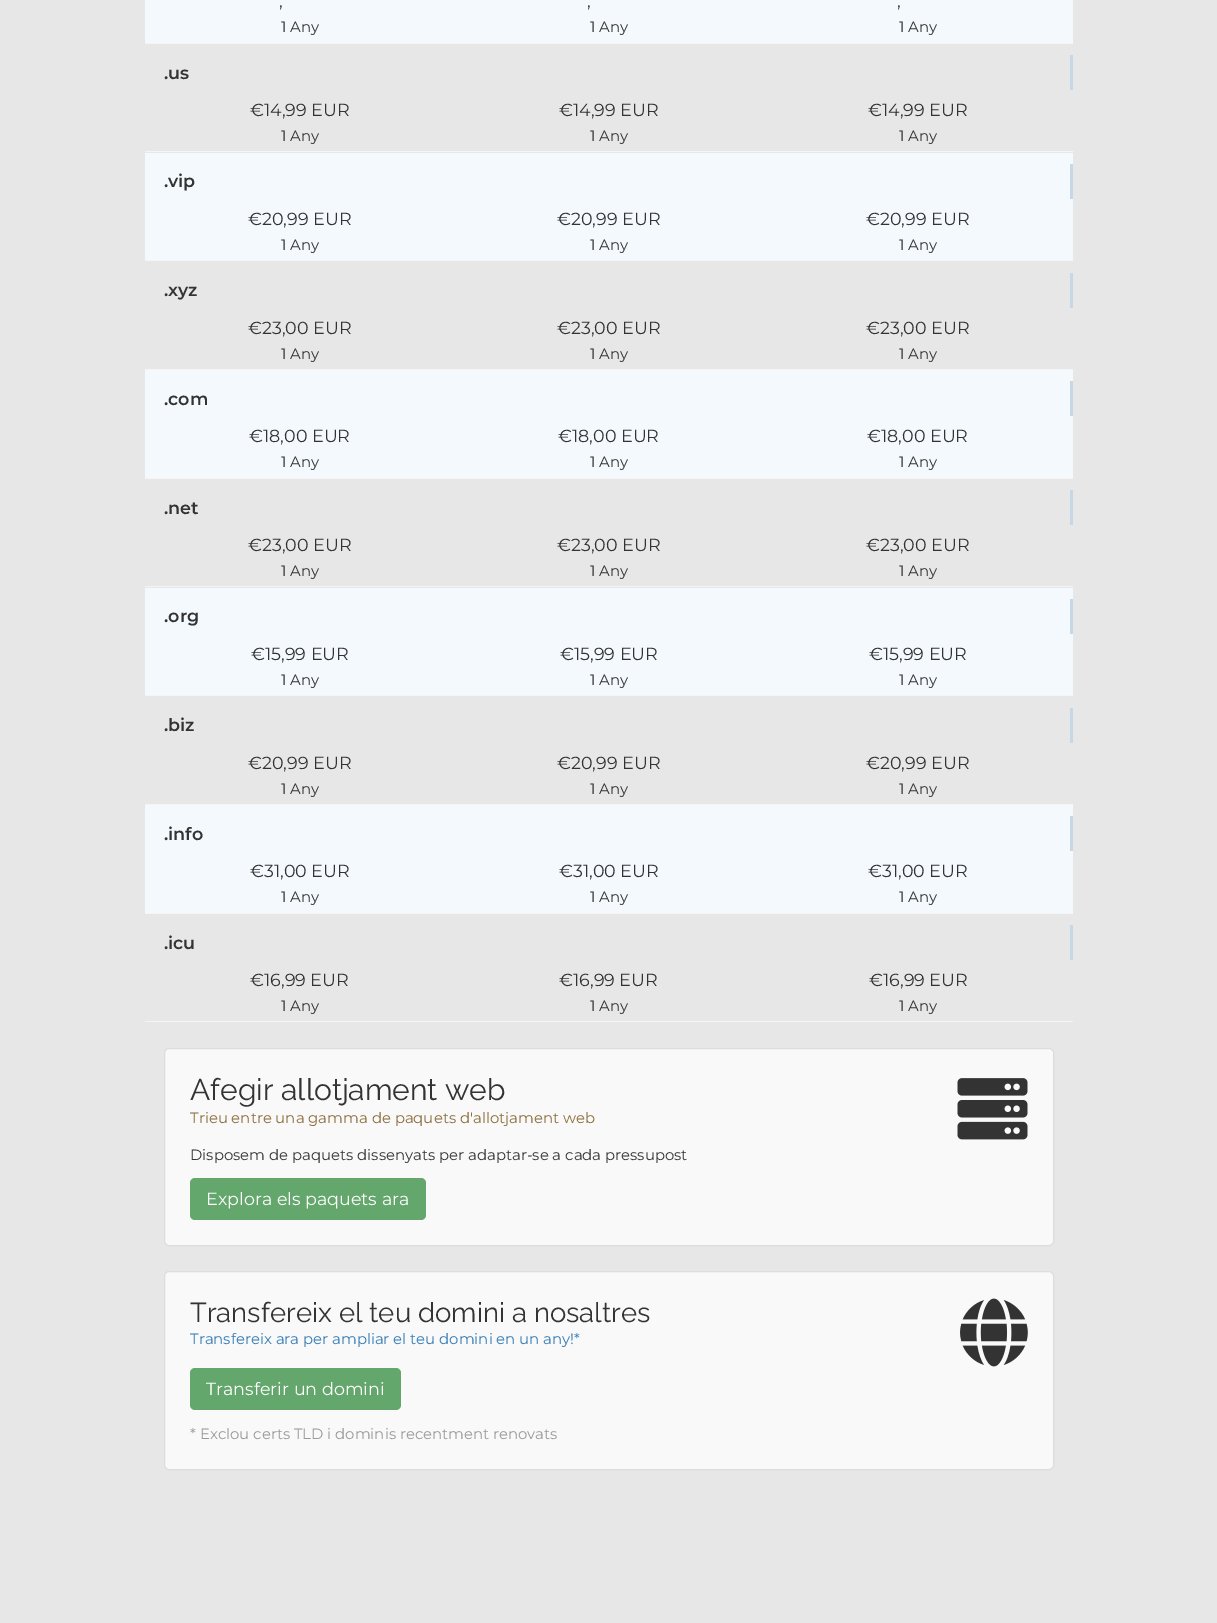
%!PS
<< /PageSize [1217 1623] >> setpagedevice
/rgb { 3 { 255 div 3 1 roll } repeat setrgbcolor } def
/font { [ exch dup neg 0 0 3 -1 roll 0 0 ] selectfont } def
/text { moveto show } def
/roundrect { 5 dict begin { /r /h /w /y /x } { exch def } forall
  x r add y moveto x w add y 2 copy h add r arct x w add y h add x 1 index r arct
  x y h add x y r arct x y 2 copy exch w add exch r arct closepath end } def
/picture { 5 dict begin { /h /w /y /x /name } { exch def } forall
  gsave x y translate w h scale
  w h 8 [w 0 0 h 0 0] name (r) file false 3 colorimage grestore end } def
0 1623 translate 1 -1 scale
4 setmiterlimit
231 231 231 rgb
0 0 1217 1623 rectfill
243 249 253 rgb
145 0 928 43 rectfill
245 245 245 rgb
145 43 928 1 rectfill
145 151 928 1 rectfill
199 215 230 rgb
1070 55 3 35 rectfill
243 249 253 rgb
145 153 928 107 rectfill
245 245 245 rgb
145 260 928 1 rectfill
199 215 230 rgb
1070 164 3 35 rectfill
245 245 245 rgb
145 369 928 1 rectfill
199 215 230 rgb
1070 273 3 35 rectfill
243 249 253 rgb
145 370 928 108 rectfill
245 245 245 rgb
145 478 928 1 rectfill
199 215 230 rgb
1070 381 3 35 rectfill
245 245 245 rgb
145 586 928 1 rectfill
199 215 230 rgb
1070 490 3 35 rectfill
243 249 253 rgb
145 588 928 107 rectfill
245 245 245 rgb
145 695 928 1 rectfill
199 215 230 rgb
1070 599 3 35 rectfill
245 245 245 rgb
145 804 928 1 rectfill
199 215 230 rgb
1070 708 3 35 rectfill
243 249 253 rgb
145 805 928 108 rectfill
245 245 245 rgb
145 913 928 1 rectfill
199 215 230 rgb
1070 816 3 35 rectfill
245 245 245 rgb
145 1021 928 1 rectfill
199 215 230 rgb
1070 925 3 35 rectfill
249 249 249 rgb
164.5 1048.5 889 197 4.5 roundrect gsave fill grestore
221 221 221 rgb
stroke
(img_01.rgb) 957 1078 71 62 picture
100 167 108 rgb
190 1178 236 42 5 roundrect fill
249 249 249 rgb
164.5 1271.5 889 198 4.5 roundrect gsave fill grestore
221 221 221 rgb
stroke
(img_02.rgb) 960 1298 68 69 picture
100 167 108 rgb
190 1368 211 42 5 roundrect fill
/Montserrat-Regular 17.5 font
51 51 51 rgb
(,) 279 7 text
/Montserrat-Regular 14.9 font
(1 Any) 281 32 text
/Montserrat-Regular 17.5 font
(,) 587 7 text
/Montserrat-Regular 14.9 font
(1 Any) 590 32 text
/Montserrat-Regular 17.5 font
(,) 897 7 text
/Montserrat-Regular 14.9 font
(1 Any) 899 32 text
/Montserrat-SemiBold 17.5 font
(.us) 164 79 text
/Montserrat-Regular 17.5 font
(€14,99 EUR) 250 116 text
/Montserrat-Regular 14.9 font
(1 Any) 281 141 text
/Montserrat-Regular 17.5 font
(€14,99 EUR) 559 116 text
/Montserrat-Regular 14.9 font
(1 Any) 590 141 text
/Montserrat-Regular 17.5 font
(€14,99 EUR) 868 116 text
/Montserrat-Regular 14.9 font
(1 Any) 899 141 text
/Montserrat-SemiBold 17.5 font
(.vip) 164 187 text
/Montserrat-Regular 17.5 font
(€20,99 EUR) 248 225 text
/Montserrat-Regular 14.9 font
(1 Any) 281 250 text
/Montserrat-Regular 17.5 font
(€20,99 EUR) 557 225 text
/Montserrat-Regular 14.9 font
(1 Any) 590 250 text
/Montserrat-Regular 17.5 font
(€20,99 EUR) 866 225 text
/Montserrat-Regular 14.9 font
(1 Any) 899 250 text
/Montserrat-SemiBold 17.5 font
(.xyz) 164 296 text
/Montserrat-Regular 17.5 font
(€23,00 EUR) 248 334 text
/Montserrat-Regular 14.9 font
(1 Any) 281 359 text
/Montserrat-Regular 17.5 font
(€23,00 EUR) 557 334 text
/Montserrat-Regular 14.9 font
(1 Any) 590 359 text
/Montserrat-Regular 17.5 font
(€23,00 EUR) 866 334 text
/Montserrat-Regular 14.9 font
(1 Any) 899 359 text
/Montserrat-SemiBold 17.5 font
(.com) 164 405 text
/Montserrat-Regular 17.5 font
(€18,00 EUR) 249 442 text
/Montserrat-Regular 14.9 font
(1 Any) 281 467 text
/Montserrat-Regular 17.5 font
(€18,00 EUR) 558 442 text
/Montserrat-Regular 14.9 font
(1 Any) 590 467 text
/Montserrat-Regular 17.5 font
(€18,00 EUR) 867 442 text
/Montserrat-Regular 14.9 font
(1 Any) 899 467 text
/Montserrat-SemiBold 17.5 font
(.net) 164 514 text
/Montserrat-Regular 17.5 font
(€23,00 EUR) 248 551 text
/Montserrat-Regular 14.9 font
(1 Any) 281 576 text
/Montserrat-Regular 17.5 font
(€23,00 EUR) 557 551 text
/Montserrat-Regular 14.9 font
(1 Any) 590 576 text
/Montserrat-Regular 17.5 font
(€23,00 EUR) 866 551 text
/Montserrat-Regular 14.9 font
(1 Any) 899 576 text
/Montserrat-SemiBold 17.5 font
(.org) 164 622 text
/Montserrat-Regular 17.5 font
(€15,99 EUR) 251 660 text
/Montserrat-Regular 14.9 font
(1 Any) 281 685 text
/Montserrat-Regular 17.5 font
(€15,99 EUR) 560 660 text
/Montserrat-Regular 14.9 font
(1 Any) 590 685 text
/Montserrat-Regular 17.5 font
(€15,99 EUR) 869 660 text
/Montserrat-Regular 14.9 font
(1 Any) 899 685 text
/Montserrat-SemiBold 17.5 font
(.biz) 164 731 text
/Montserrat-Regular 17.5 font
(€20,99 EUR) 248 769 text
/Montserrat-Regular 14.9 font
(1 Any) 281 794 text
/Montserrat-Regular 17.5 font
(€20,99 EUR) 557 769 text
/Montserrat-Regular 14.9 font
(1 Any) 590 794 text
/Montserrat-Regular 17.5 font
(€20,99 EUR) 866 769 text
/Montserrat-Regular 14.9 font
(1 Any) 899 794 text
/Montserrat-SemiBold 17.5 font
(.info) 164 840 text
/Montserrat-Regular 17.5 font
(€31,00 EUR) 250 877 text
/Montserrat-Regular 14.9 font
(1 Any) 281 902 text
/Montserrat-Regular 17.5 font
(€31,00 EUR) 559 877 text
/Montserrat-Regular 14.9 font
(1 Any) 590 902 text
/Montserrat-Regular 17.5 font
(€31,00 EUR) 868 877 text
/Montserrat-Regular 14.9 font
(1 Any) 899 902 text
/Montserrat-SemiBold 17.5 font
(.icu) 164 949 text
/Montserrat-Regular 17.5 font
(€16,99 EUR) 250 986 text
/Montserrat-Regular 14.9 font
(1 Any) 281 1011 text
/Montserrat-Regular 17.5 font
(€16,99 EUR) 559 986 text
/Montserrat-Regular 14.9 font
(1 Any) 590 1011 text
/Montserrat-Regular 17.5 font
(€16,99 EUR) 869 986 text
/Montserrat-Regular 14.9 font
(1 Any) 899 1011 text
/Raleway-Regular 30 font
(Afegir allotjament web) 190 1100 text
/Montserrat-Regular 14.9 font
138 109 59 rgb
(Trieu entre una gamma de paquets d'allotjament web) 190 1123 text
51 51 51 rgb
(Disposem de paquets dissenyats per adaptar-se a cada pressupost) 190 1160 text
/Montserrat-Regular 17.5 font
255 255 255 rgb
(Explora els paquets ara) 206 1205 text
/Raleway-Regular 27.5 font
51 51 51 rgb
(Transfereix el teu domini a nosaltres) 190 1322 text
/Montserrat-Regular 14.9 font
51 122 183 rgb
(Transfereix ara per ampliar el teu domini en un any!*) 190 1344 text
/Montserrat-Regular 17.5 font
255 255 255 rgb
(Transferir un domini) 206 1395 text
/Montserrat-Regular 14.9 font
153 153 153 rgb
(* Exclou certs TLD i dominis recentment renovats) 190 1439 text
showpage
